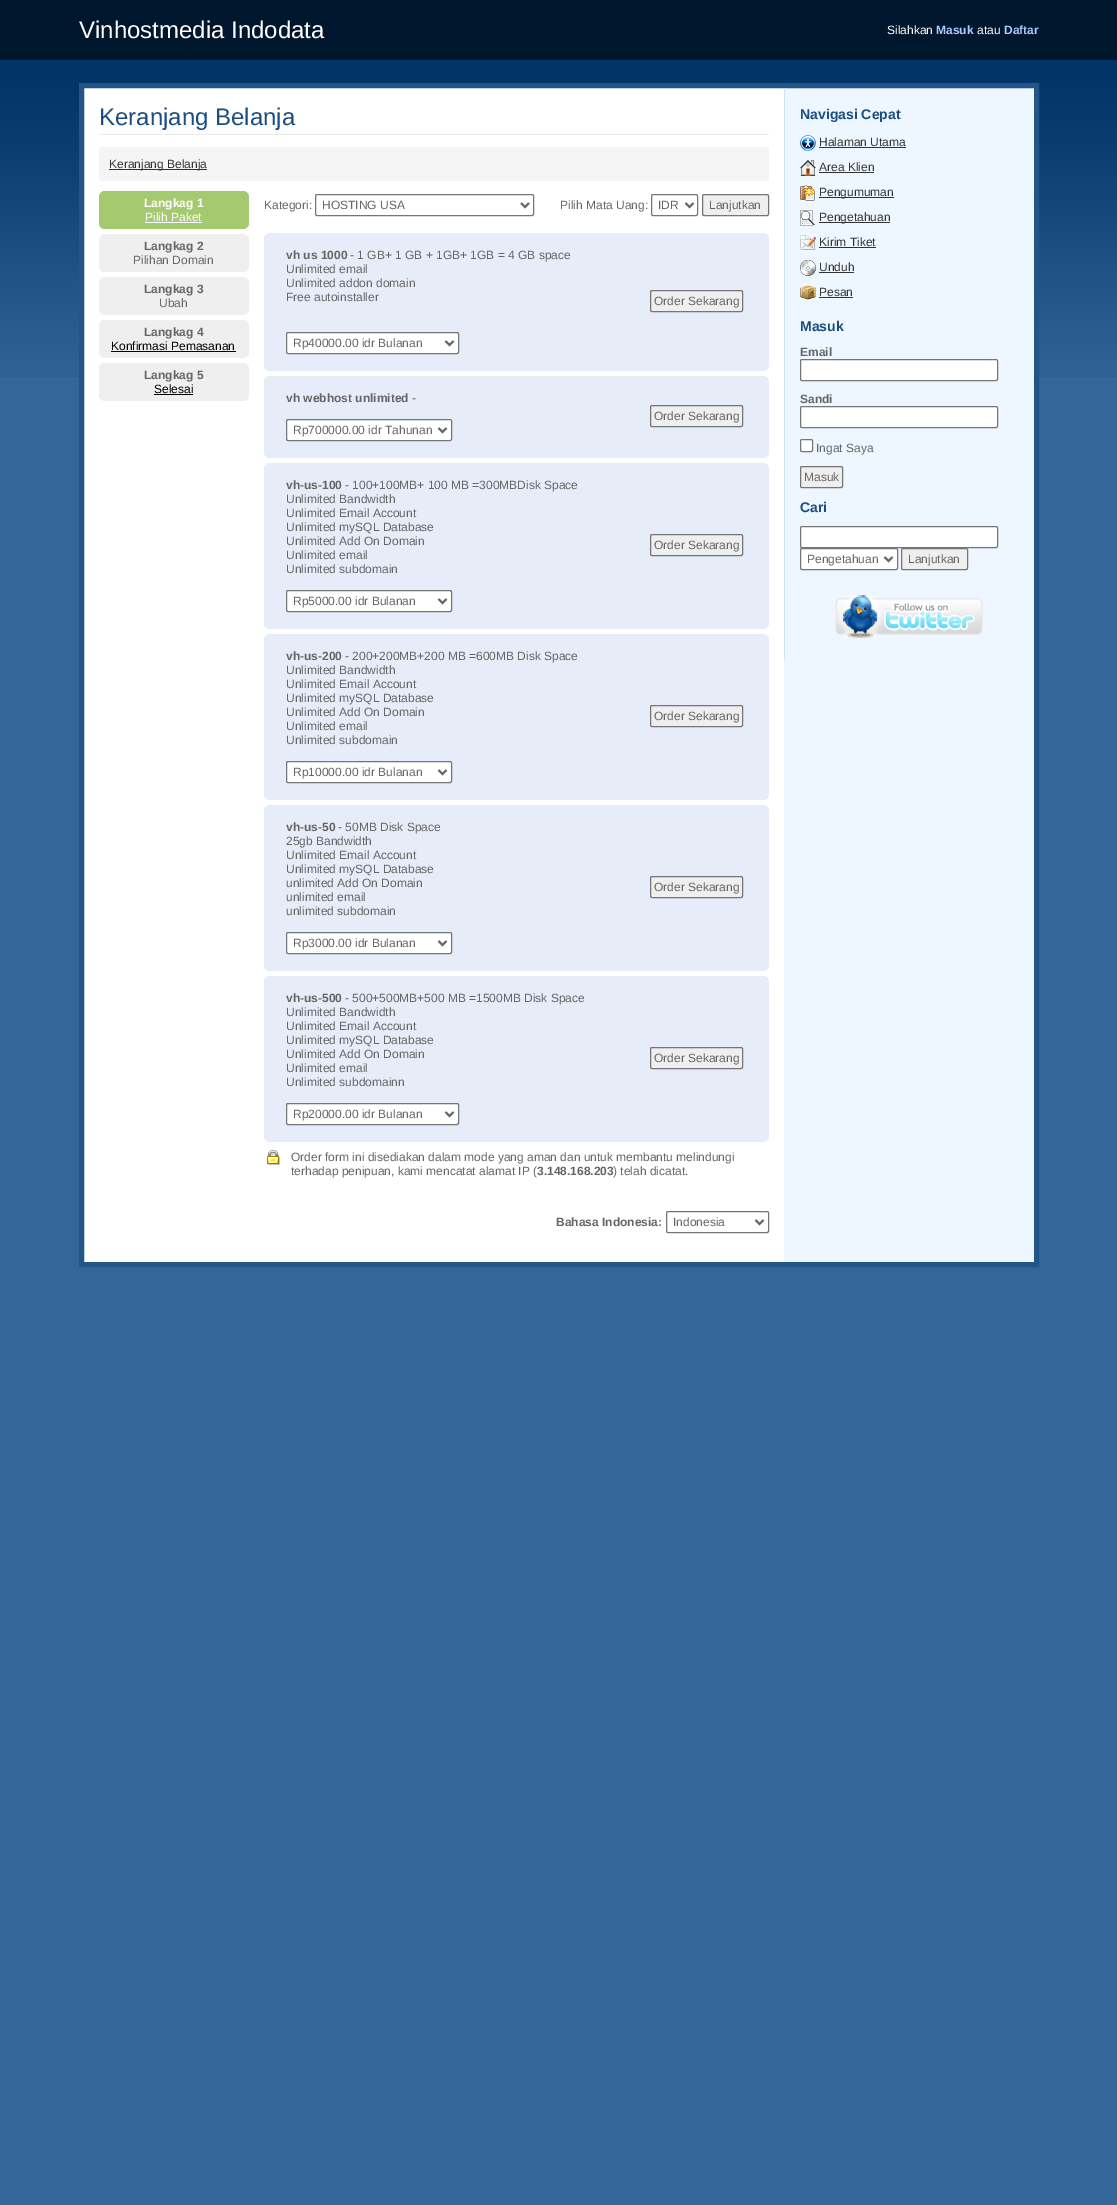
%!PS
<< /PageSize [1117 2205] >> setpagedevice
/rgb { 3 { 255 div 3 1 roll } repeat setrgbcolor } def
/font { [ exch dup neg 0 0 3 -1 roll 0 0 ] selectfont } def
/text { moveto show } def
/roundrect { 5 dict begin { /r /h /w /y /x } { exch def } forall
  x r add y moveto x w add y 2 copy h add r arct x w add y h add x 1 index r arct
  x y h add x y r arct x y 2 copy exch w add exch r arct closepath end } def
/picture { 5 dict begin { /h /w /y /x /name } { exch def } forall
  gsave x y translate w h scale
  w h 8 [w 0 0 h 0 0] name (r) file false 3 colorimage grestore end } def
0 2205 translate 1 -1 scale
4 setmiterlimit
51 102 153 rgb
0 0 1117 2205 rectfill
(img_01.rgb) 0 63 1117 314 picture
0 22 44 rgb
0 0 1117 60 rectfill
0 51 102 rgb
0 60 1117 3 rectfill
255 255 255 rgb
84 88 700 1174 rectfill
238 246 255 rgb
784 88 250 1174 rectfill
34 85 136 rgb
5 setlinewidth
81.5 85.5 955 1179 rectstroke
235 235 235 rgb
99 134 670 1 rectfill
245 245 245 rgb
99 147 670 34 rectfill
51 51 51 rgb
109 169 98 1 rectfill
164 201 110 rgb
99 191 150 38 6 roundrect fill
255 255 255 rgb
145 222 57 1 rectfill
239 239 239 rgb
99 234 150 38 6 roundrect fill
99 277 150 38 6 roundrect fill
99 320 150 38 6 roundrect fill
0 0 0 rgb
111 351 125 1 rectfill
239 239 239 rgb
99 363 150 38 6 roundrect fill
0 0 0 rgb
154 394 39 1 rectfill
118 118 118 rgb
1 setlinewidth
315.5 194.5 218 21 1.5 roundrect stroke
102 102 102 rgb
2 setlinewidth
521 203 moveto 4 4 rlineto 4 -4 rlineto stroke
118 118 118 rgb
1 setlinewidth
651.5 194.5 46 21 1.5 roundrect stroke
102 102 102 rgb
2 setlinewidth
685.5 203 moveto 4 4 rlineto 4 -4 rlineto stroke
239 239 239 rgb
702.5 194.5 66 21 1.5 roundrect gsave fill grestore
118 118 118 rgb
1 setlinewidth
stroke
230 236 248 rgb
264 233 505 138 6 roundrect fill
255 255 255 rgb
286.5 332.5 172 21 1.5 roundrect gsave fill grestore
118 118 118 rgb
stroke
102 102 102 rgb
2 setlinewidth
445.5 341 moveto 4 4 rlineto 4 -4 rlineto stroke
239 239 239 rgb
650.5 290.5 92 21 1.5 roundrect gsave fill grestore
118 118 118 rgb
1 setlinewidth
stroke
230 236 248 rgb
264 376 505 82 6 roundrect fill
255 255 255 rgb
286.5 419.5 165 21 1.5 roundrect gsave fill grestore
118 118 118 rgb
stroke
102 102 102 rgb
2 setlinewidth
438.5 428 moveto 4 4 rlineto 4 -4 rlineto stroke
239 239 239 rgb
650.5 405.5 92 21 1.5 roundrect gsave fill grestore
118 118 118 rgb
1 setlinewidth
stroke
230 236 248 rgb
264 463 505 166 6 roundrect fill
255 255 255 rgb
286.5 590.5 165 21 1.5 roundrect gsave fill grestore
118 118 118 rgb
stroke
102 102 102 rgb
2 setlinewidth
438.5 599 moveto 4 4 rlineto 4 -4 rlineto stroke
239 239 239 rgb
650.5 534.5 92 21 1.5 roundrect gsave fill grestore
118 118 118 rgb
1 setlinewidth
stroke
230 236 248 rgb
264 634 505 166 6 roundrect fill
255 255 255 rgb
286.5 761.5 165 21 1.5 roundrect gsave fill grestore
118 118 118 rgb
stroke
102 102 102 rgb
2 setlinewidth
438.5 770 moveto 4 4 rlineto 4 -4 rlineto stroke
239 239 239 rgb
650.5 705.5 92 21 1.5 roundrect gsave fill grestore
118 118 118 rgb
1 setlinewidth
stroke
230 236 248 rgb
264 805 505 166 6 roundrect fill
255 255 255 rgb
286.5 932.5 165 21 1.5 roundrect gsave fill grestore
118 118 118 rgb
stroke
102 102 102 rgb
2 setlinewidth
438.5 941 moveto 4 4 rlineto 4 -4 rlineto stroke
239 239 239 rgb
650.5 876.5 92 21 1.5 roundrect gsave fill grestore
118 118 118 rgb
1 setlinewidth
stroke
230 236 248 rgb
264 976 505 166 6 roundrect fill
255 255 255 rgb
286.5 1103.5 172 21 1.5 roundrect gsave fill grestore
118 118 118 rgb
stroke
102 102 102 rgb
2 setlinewidth
445.5 1112 moveto 4 4 rlineto 4 -4 rlineto stroke
239 239 239 rgb
650.5 1047.5 92 21 1.5 roundrect gsave fill grestore
118 118 118 rgb
1 setlinewidth
stroke
(img_02.rgb) 267 1150 13 15 picture
666.5 1211.5 102 21 1.5 roundrect stroke
102 102 102 rgb
2 setlinewidth
755.5 1220 moveto 4 4 rlineto 4 -4 rlineto stroke
207 226 255 rgb
784 88 1 573 rectfill
(img_03.rgb) 800 135 16 16 picture
51 51 51 rgb
819 147 87 1 rectfill
(img_04.rgb) 800 160 16 16 picture
819 172 55 1 rectfill
(img_05.rgb) 800 185 15 16 picture
819 197 75 1 rectfill
(img_06.rgb) 800 210 16 16 picture
819 222 71 1 rectfill
(img_07.rgb) 800 235 16 15 picture
819 247 57 1 rectfill
(img_08.rgb) 800 260 16 16 picture
819 272 35 1 rectfill
(img_09.rgb) 800 285 16 15 picture
819 297 34 1 rectfill
255 255 255 rgb
800.5 359.5 197 21 1.5 roundrect gsave fill grestore
118 118 118 rgb
1 setlinewidth
stroke
255 255 255 rgb
800.5 406.5 197 21 1.5 roundrect gsave fill grestore
118 118 118 rgb
stroke
255 255 255 rgb
800.5 439.5 12 12 1.5 roundrect gsave fill grestore
118 118 118 rgb
stroke
239 239 239 rgb
800.5 466.5 42 21 1.5 roundrect gsave fill grestore
118 118 118 rgb
stroke
255 255 255 rgb
800.5 526.5 197 21 1.5 roundrect gsave fill grestore
118 118 118 rgb
stroke
255 255 255 rgb
800.5 548.5 97 21 1.5 roundrect gsave fill grestore
118 118 118 rgb
stroke
102 102 102 rgb
2 setlinewidth
884.5 557 moveto 4 4 rlineto 4 -4 rlineto stroke
239 239 239 rgb
901.5 548.5 66 21 1.5 roundrect gsave fill grestore
118 118 118 rgb
1 setlinewidth
stroke
(img_10.rgb) 835 595 148 43 picture
/LiberationSans-Regular 24 font
255 255 255 rgb
(Vinhostmedia Indodata) 79 38 text
/LiberationSans-Regular 12 font
(Silahkan) 887 34 text
/LiberationSans-Bold 12 font
172 203 255 rgb
(Masuk) 936 34 text
/LiberationSans-Regular 12 font
255 255 255 rgb
(atau) 977 34 text
/LiberationSans-Bold 12 font
172 203 255 rgb
(Daftar) 1004 34 text
/LiberationSans-Regular 24 font
26 77 128 rgb
(Keranjang Belanja) 99 125 text
/LiberationSans-Regular 12 font
51 51 51 rgb
(Keranjang Belanja) 109 168 text
/LiberationSans-Bold 12 font
255 255 255 rgb
(Langkag 1) 144 207 text
/LiberationSans-Regular 12 font
(Pilih Paket) 145 221 text
/LiberationSans-Bold 12 font
102 102 102 rgb
(Langkag 2) 144 250 text
/LiberationSans-Regular 12 font
(Pilihan Domain) 133 264 text
/LiberationSans-Bold 12 font
(Langkag 3) 144 293 text
/LiberationSans-Regular 12 font
(Ubah) 159 307 text
/LiberationSans-Bold 12 font
(Langkag 4) 144 336 text
/LiberationSans-Regular 12 font
0 0 0 rgb
(Konfirmasi Pemasanan) 111 350 text
/LiberationSans-Bold 12 font
102 102 102 rgb
(Langkag 5) 144 379 text
/LiberationSans-Regular 12 font
0 0 0 rgb
(Selesai) 154 393 text
102 102 102 rgb
(Kategori:) 264 209 text
(HOSTING USA) 322 209 text
(Pilih Mata Uang:) 560 209 text
(IDR) 658 209 text
(Lanjutkan) 709 209 text
/LiberationSans-Bold 12 font
(vh us 1000) 286 259 text
/LiberationSans-Regular 12 font
(- 1 GB+ 1 GB + 1GB+ 1GB = 4 GB space) 350 259 text
(Unlimited email) 286 273 text
(Unlimited addon domain) 286 287 text
(Free autoinstaller) 286 301 text
(Rp40000.00 idr Bulanan) 293 347 text
(Order Sekarang) 654 305 text
/LiberationSans-Bold 12 font
(vh webhost unlimited) 286 402 text
/LiberationSans-Regular 12 font
(-) 412 402 text
(Rp700000.00 idr Tahunan) 293 434 text
(Order Sekarang) 654 420 text
/LiberationSans-Bold 12 font
(vh-us-100) 286 489 text
/LiberationSans-Regular 12 font
(- 100+100MB+ 100 MB =300MBDisk Space) 345 489 text
(Unlimited Bandwidth) 286 503 text
(Unlimited Email Account) 286 517 text
(Unlimited mySQL Database) 286 531 text
(Unlimited Add On Domain) 286 545 text
(Unlimited email) 286 559 text
(Unlimited subdomain) 286 573 text
(Rp5000.00 idr Bulanan) 293 605 text
(Order Sekarang) 654 549 text
/LiberationSans-Bold 12 font
(vh-us-200) 286 660 text
/LiberationSans-Regular 12 font
(- 200+200MB+200 MB =600MB Disk Space) 345 660 text
(Unlimited Bandwidth) 286 674 text
(Unlimited Email Account) 286 688 text
(Unlimited mySQL Database) 286 702 text
(Unlimited Add On Domain) 286 716 text
(Unlimited email) 286 730 text
(Unlimited subdomain) 286 744 text
(Rp10000.00 idr Bulanan) 293 776 text
(Order Sekarang) 654 720 text
/LiberationSans-Bold 12 font
(vh-us-50) 286 831 text
/LiberationSans-Regular 12 font
(- 50MB Disk Space) 338 831 text
(25gb Bandwidth) 286 845 text
(Unlimited Email Account) 286 859 text
(Unlimited mySQL Database) 286 873 text
(unlimited Add On Domain) 286 887 text
(unlimited email) 286 901 text
(unlimited subdomain) 286 915 text
(Rp3000.00 idr Bulanan) 293 947 text
(Order Sekarang) 654 891 text
/LiberationSans-Bold 12 font
(vh-us-500) 286 1002 text
/LiberationSans-Regular 12 font
(- 500+500MB+500 MB =1500MB Disk Space) 345 1002 text
(Unlimited Bandwidth) 286 1016 text
(Unlimited Email Account) 286 1030 text
(Unlimited mySQL Database) 286 1044 text
(Unlimited Add On Domain) 286 1058 text
(Unlimited email) 286 1072 text
(Unlimited subdomainn) 286 1086 text
(Rp20000.00 idr Bulanan) 293 1118 text
(Order Sekarang) 654 1062 text
(Order form ini disediakan dalam mode yang aman dan untuk membantu melindungi) 291 1161 text
(terhadap penipuan, kami mencatat alamat IP \() 291 1175 text
/LiberationSans-Bold 12 font
(3.148.168.203) 537 1175 text
/LiberationSans-Regular 12 font
(\) telah dicatat.) 613 1175 text
/LiberationSans-Bold 12 font
(Bahasa Indonesia:) 556 1226 text
/LiberationSans-Regular 12 font
(Indonesia) 673 1226 text
/LiberationSans-Bold 14 font
26 77 128 rgb
(Navigasi Cepat) 800 119 text
/LiberationSans-Regular 12 font
51 51 51 rgb
(Halaman Utama) 819 146 text
(Area Klien) 819 171 text
(Pengumuman) 819 196 text
(Pengetahuan) 819 221 text
(Kirim Tiket) 819 246 text
(Unduh) 819 271 text
(Pesan) 819 296 text
/LiberationSans-Bold 14 font
26 77 128 rgb
(Masuk) 800 331 text
/LiberationSans-Bold 12 font
102 102 102 rgb
(Email) 800 356 text
(Sandi) 800 403 text
/LiberationSans-Regular 12 font
(Ingat Saya) 816 452 text
(Masuk) 804 481 text
/LiberationSans-Bold 14 font
26 77 128 rgb
(Cari) 800 512 text
/LiberationSans-Regular 12 font
102 102 102 rgb
(Pengetahuan) 807 563 text
(Lanjutkan) 908 563 text
showpage
